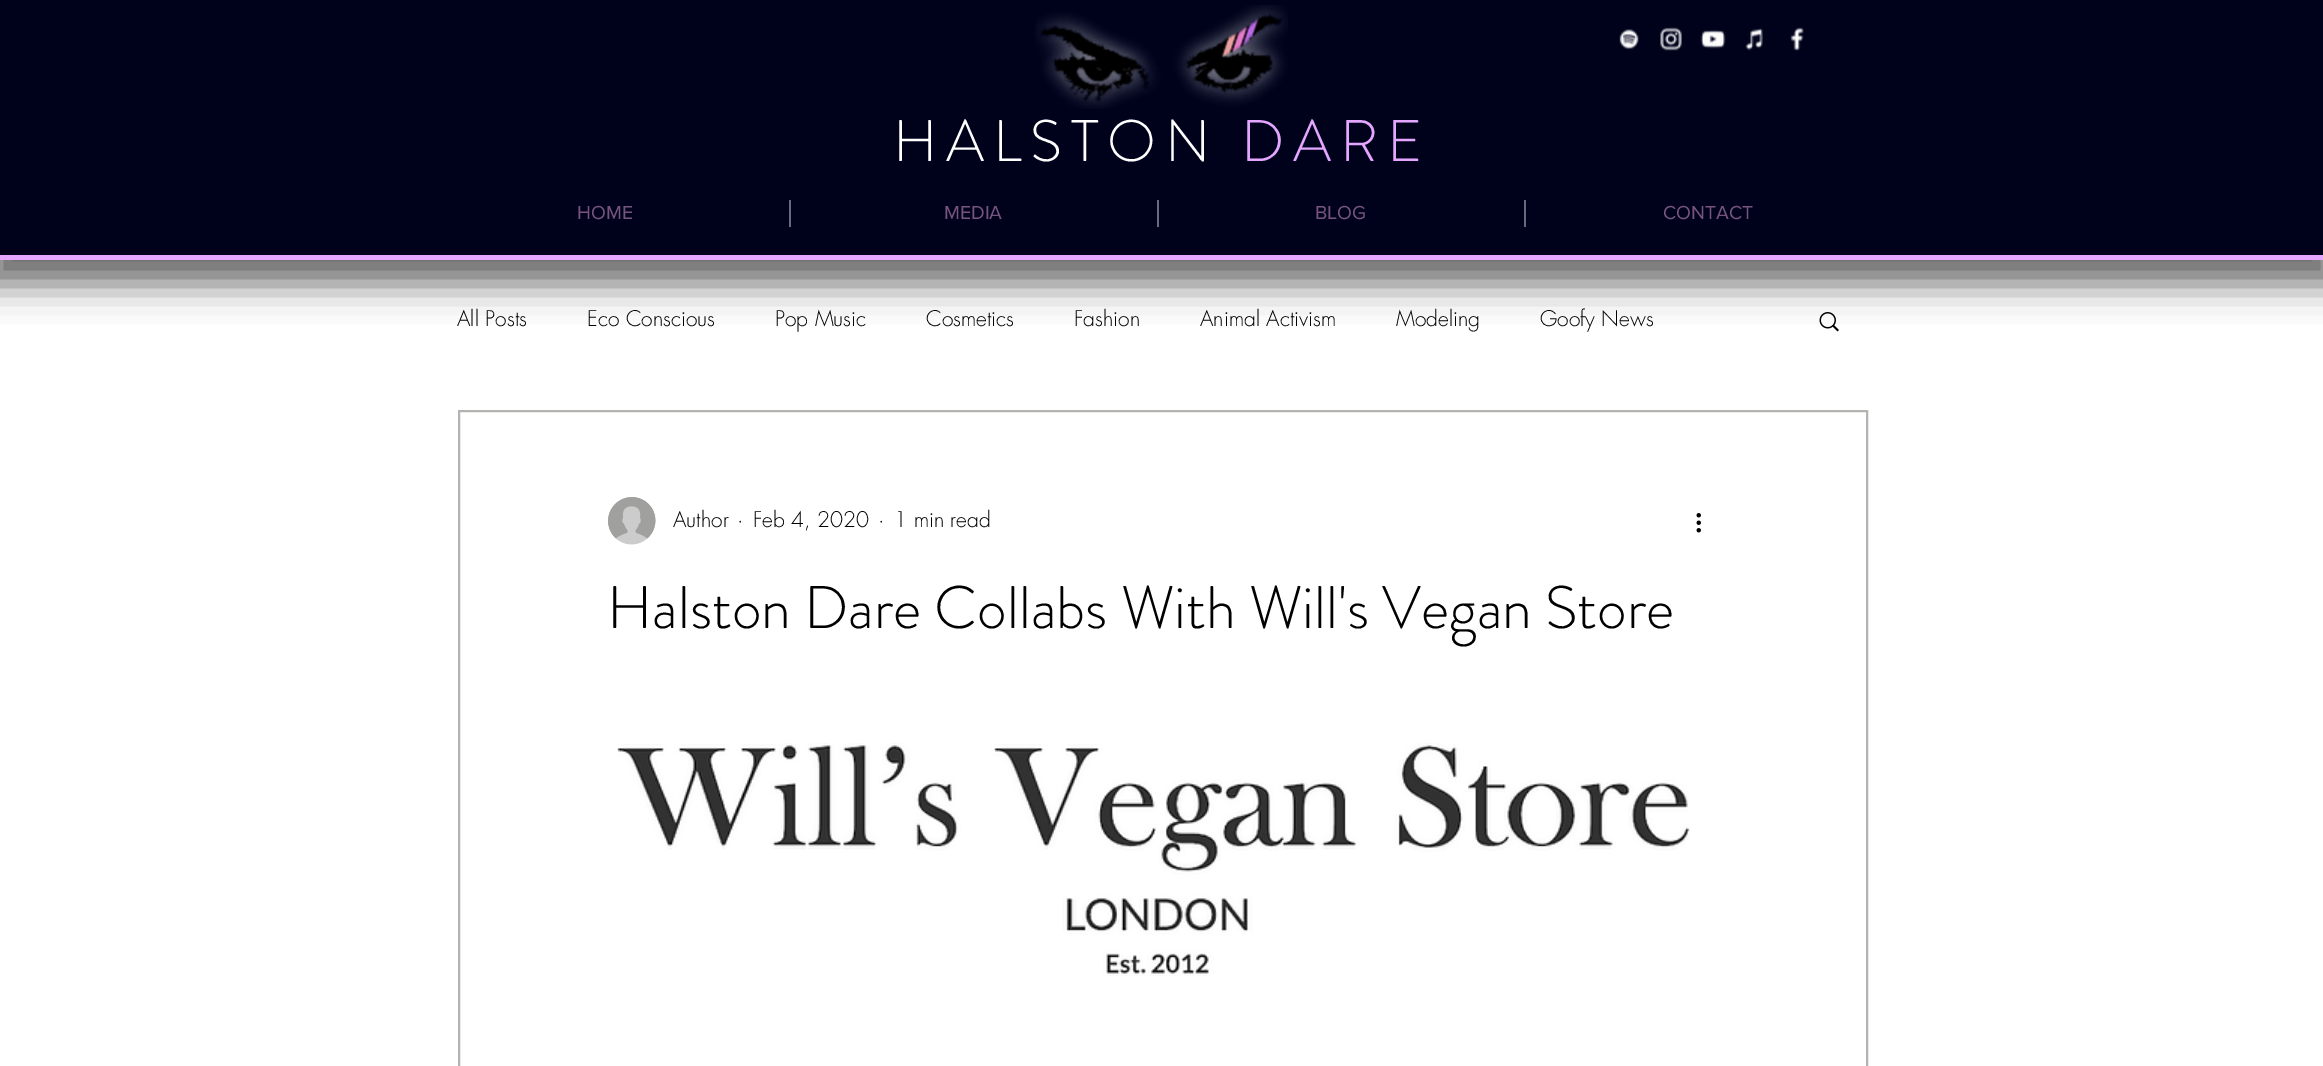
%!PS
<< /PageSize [2323 1066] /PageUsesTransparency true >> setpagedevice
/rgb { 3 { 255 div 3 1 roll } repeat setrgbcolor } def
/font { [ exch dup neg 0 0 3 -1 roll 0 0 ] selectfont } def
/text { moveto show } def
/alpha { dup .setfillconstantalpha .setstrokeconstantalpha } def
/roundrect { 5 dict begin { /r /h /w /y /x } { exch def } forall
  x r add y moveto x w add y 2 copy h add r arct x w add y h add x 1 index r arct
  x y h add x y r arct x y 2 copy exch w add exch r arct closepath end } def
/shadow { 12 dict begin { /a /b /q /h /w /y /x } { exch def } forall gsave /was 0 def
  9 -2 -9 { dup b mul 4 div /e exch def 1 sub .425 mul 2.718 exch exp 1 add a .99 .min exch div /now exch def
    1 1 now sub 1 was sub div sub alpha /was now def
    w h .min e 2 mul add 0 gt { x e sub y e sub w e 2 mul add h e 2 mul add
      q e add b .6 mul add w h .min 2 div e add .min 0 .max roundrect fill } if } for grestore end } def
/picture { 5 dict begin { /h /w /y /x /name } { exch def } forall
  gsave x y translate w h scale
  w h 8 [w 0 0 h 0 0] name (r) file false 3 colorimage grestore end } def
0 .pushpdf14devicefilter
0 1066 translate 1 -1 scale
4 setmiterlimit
255 255 255 rgb
0 0 2323 1066 rectfill
(img_07.rgb) 1819 312 20 20 picture
0 0 0 rgb
-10 3 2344 281 0 18 0.6 shadow
0 2 28 rgb
0 0 2323 255 rectfill
229 166 255 rgb
0 255 2323 5 rectfill
(img_01.rgb) 1035 5 253 104 picture
(img_02.rgb) 1619 29 20 21 picture
(img_03.rgb) 1660 27 22 24 picture
(img_04.rgb) 1700 30 26 19 picture
(img_05.rgb) 1745 28 18 23 picture
(img_06.rgb) 1790 27 14 24 picture
105 106 121 rgb
789 200 2 27 rectfill
1157 200 2 27 rectfill
1524 200 2 27 rectfill
179 179 177 rgb
2 setlinewidth
459 411 1408 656 rectstroke
(img_08.rgb) 608 497 48 48 picture
(img_09.rgb) 1696 513 5 20 picture
(img_10.rgb) 617 743 1073 233 picture
/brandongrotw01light-Light 58.5 font
255 255 255 rgb
893 161 moveto 8.75 0 (HALSTON) ashow
229 166 255 rgb
1241 161 moveto 8.75 0 (DARE) ashow
/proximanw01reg-Regular 19.5 font
119 84 126 rgb
(HOME) 577 219 text
(MEDIA) 944 219 text
(BLOG) 1315 219 text
(CONTACT) 1663 219 text
/futura-Light 21 font
0 0 0 rgb
(All Posts) 457 326 text
(Eco Conscious) 587 326 text
(Pop Music) 775 326 text
(Cosmetics) 926 326 text
(Fashion) 1074 326 text
(Animal Activism) 1200 326 text
(Modeling) 1396 326 text
(Goofy News) 1540 326 text
(Author) 673 527 text
(·) 737 527 text
(Feb 4, 2020) 753 527 text
(·) 878 527 text
(1 min read) 894 527 text
/brandongrotw01light-Light 60 font
(Halston Dare Collabs With Will's Vegan Store) 607 628 text
.poppdf14devicefilter showpage
